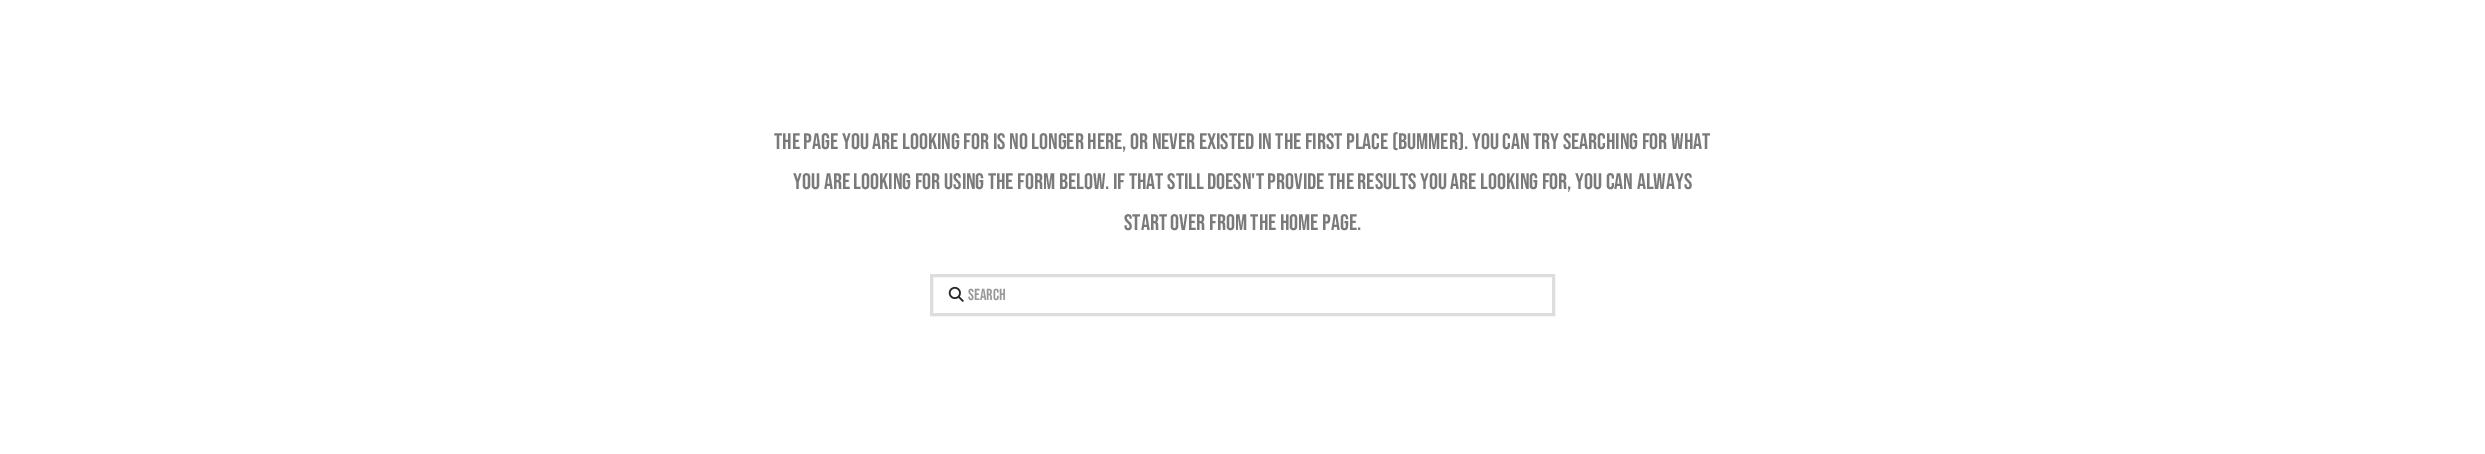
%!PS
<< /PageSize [2485 454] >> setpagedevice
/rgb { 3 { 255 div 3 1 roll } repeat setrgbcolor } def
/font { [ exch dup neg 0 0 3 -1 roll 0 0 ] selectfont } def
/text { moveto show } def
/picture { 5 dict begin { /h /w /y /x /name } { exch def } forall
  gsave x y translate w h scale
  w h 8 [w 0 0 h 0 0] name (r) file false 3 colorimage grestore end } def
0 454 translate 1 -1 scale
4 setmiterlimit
255 255 255 rgb
0 0 2485 454 rectfill
221 221 221 rgb
3 setlinewidth
931.5 275.5 622 39 rectstroke
(img_01.rgb) 948 286 16 16 picture
/BebasNeue-Regular 22.5 font
122 122 122 rgb
(The page you are looking for is no longer here, or never existed in the first place \(bummer\). You can try searching for what) 774 149 text
(you are looking for using the form below. If that still doesn't provide the results you are looking for, you can always) 793 189 text
(start over from the home page.) 1124 230 text
/BebasNeue-Regular 16 font
153 153 153 rgb
(Search) 968 300 text
showpage
